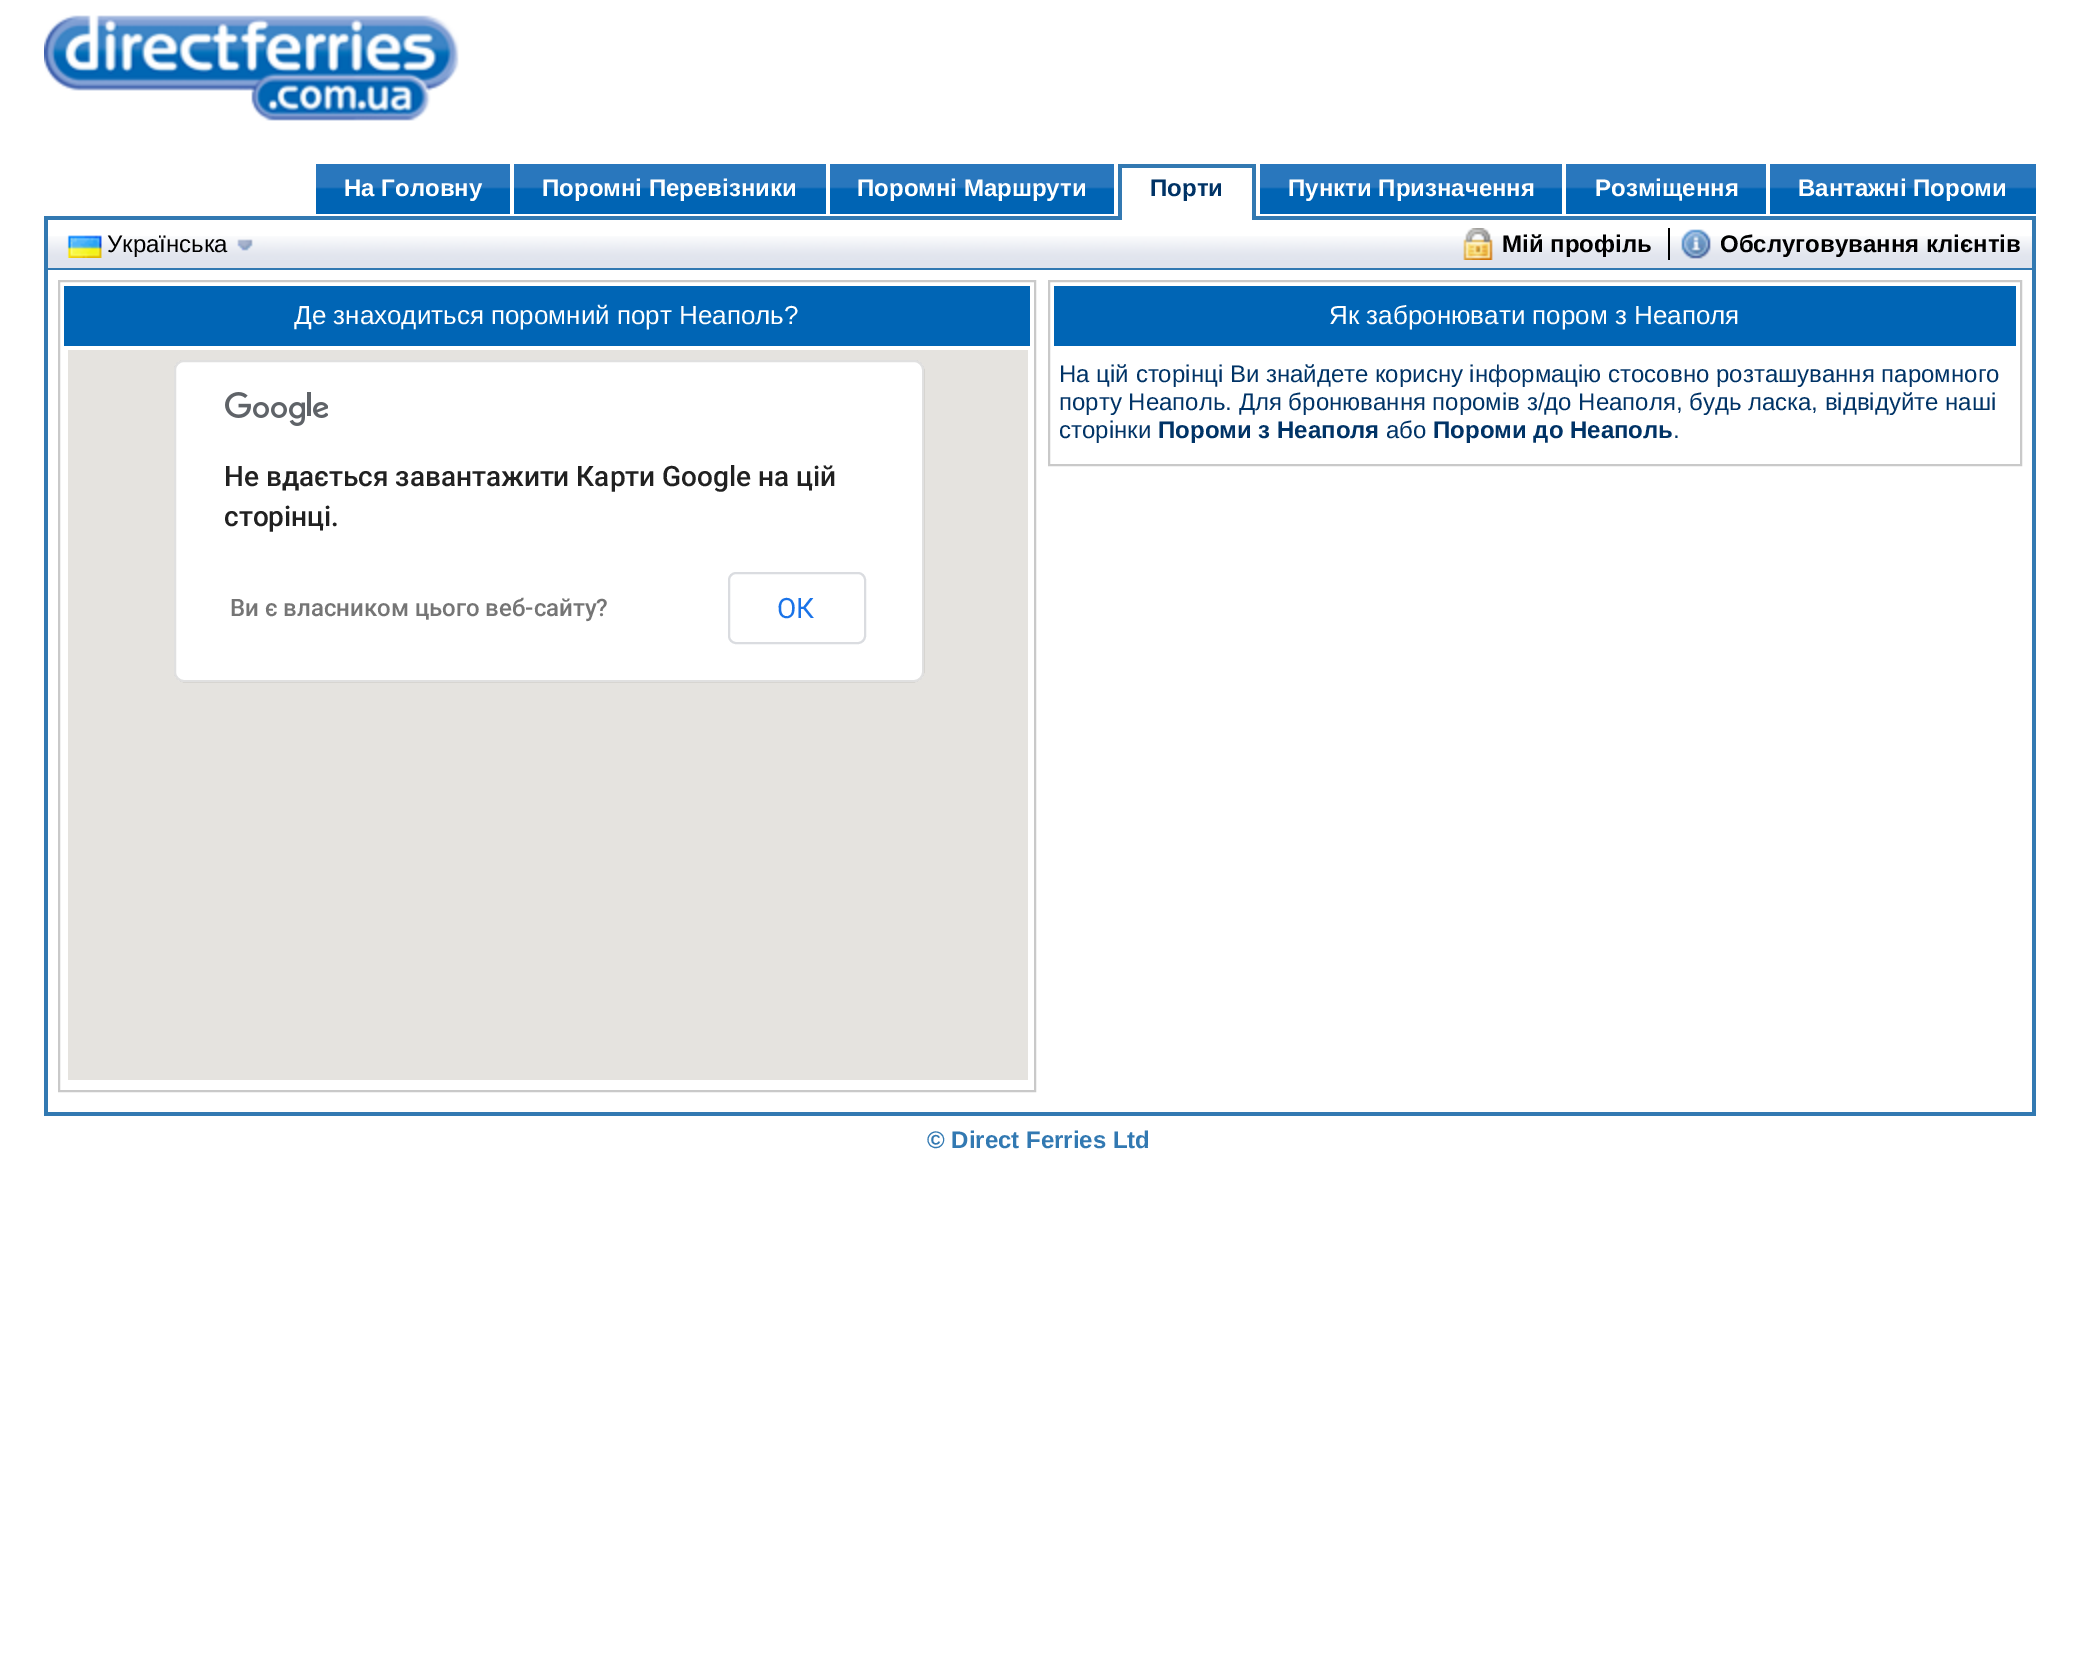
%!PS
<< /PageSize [2077 1661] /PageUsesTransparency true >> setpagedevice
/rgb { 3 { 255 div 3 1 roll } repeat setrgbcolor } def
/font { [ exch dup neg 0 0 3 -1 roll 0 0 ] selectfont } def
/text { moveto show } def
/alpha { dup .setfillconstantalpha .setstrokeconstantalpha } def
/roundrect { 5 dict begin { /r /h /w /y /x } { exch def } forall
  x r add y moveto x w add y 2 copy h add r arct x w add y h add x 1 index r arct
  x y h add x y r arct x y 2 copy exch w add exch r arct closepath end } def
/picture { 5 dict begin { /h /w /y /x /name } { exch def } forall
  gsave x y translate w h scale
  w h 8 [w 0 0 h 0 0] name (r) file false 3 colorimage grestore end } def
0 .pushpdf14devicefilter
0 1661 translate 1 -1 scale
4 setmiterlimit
255 255 255 rgb
0 0 2077 1661 rectfill
(img_01.rgb) 44 15 415 106 picture
50 121 178 rgb
44 216 1992 4 rectfill
0 100 180 rgb
316 189 194 25 rectfill
(img_02.rgb) 316 164 194 25 picture
514 189 312 25 rectfill
(img_03.rgb) 514 164 312 25 picture
830 189 284 25 rectfill
(img_04.rgb) 830 164 284 25 picture
255 255 255 rgb
1122 216 130 4 rectfill
50 121 178 rgb
1118 164 138 4 rectfill
1252 164 4 56 rectfill
1118 164 4 56 rectfill
0 100 180 rgb
1260 189 302 25 rectfill
(img_05.rgb) 1260 164 302 25 picture
1566 189 200 25 rectfill
(img_06.rgb) 1566 164 200 25 picture
1770 189 266 25 rectfill
(img_07.rgb) 1770 164 266 25 picture
(img_08.rgb) 48 236 1984 32 picture
50 121 178 rgb
2032 220 4 896 rectfill
44 268 1992 2 rectfill
44 220 4 50 rectfill
(img_09.rgb) 67 235 35 23 picture
(img_10.rgb) 237 239 16 12 picture
(img_11.rgb) 1463 228 30 32 picture
0 0 0 rgb
1668 228 2 32 rectfill
(img_12.rgb) 1681 229 30 30 picture
50 121 178 rgb
44 1112 1992 4 rectfill
44 270 4 846 rectfill
201 201 201 rgb
2 setlinewidth
59 281 976 810 rectstroke
0 101 181 rgb
64 286 966 60 rectfill
229 227 223 rgb
68 350 960 730 rectfill
0.12 alpha
0 0 0 rgb
175 361 748 320 9 roundrect stroke
1 alpha
255 255 255 rgb
174 360 750 322 10 roundrect fill
0.12 alpha
0 0 0 rgb
175 361 748 320 9 roundrect stroke
1 alpha
(img_13.rgb) 225 392 103 34 picture
218 220 224 rgb
729 573 136 70 7 roundrect stroke
201 201 201 rgb
1049 281 972 184 rectstroke
0 101 181 rgb
1054 286 962 60 rectfill
/LiberationSans-Bold 24 font
255 255 255 rgb
(На Головну) 344 196 text
(Поромні Перевізники) 542 196 text
(Поромні Маршрути) 857 196 text
0 51 102 rgb
(Порти) 1150 196 text
255 255 255 rgb
(Пункти Призначення) 1288 196 text
(Розміщення) 1595 196 text
(Вантажні Пороми) 1798 196 text
/LiberationSans-Regular 24 font
0 0 0 rgb
(Українська) 107 252 text
/LiberationSans-Bold 24 font
(Мій профіль) 1502 252 text
(Обслуговування клієнтів) 1720 252 text
/LiberationSans-Regular 26 font
255 255 255 rgb
(Де знаходиться поромний порт Неаполь?) 294 324 text
/Roboto-Medium 28 font
33 33 33 rgb
(Не вдається завантажити Карти Google на цій) 224 486 text
(сторінці.) 224 526 text
/Roboto-Medium 24 font
117 117 117 rgb
(Ви є власником цього веб-сайту?) 230 616 text
/Roboto-Regular 28 font
26 115 232 rgb
(ОК) 777 618 text
/LiberationSans-Regular 26 font
255 255 255 rgb
(Як забронювати пором з Неаполя) 1329 324 text
/LiberationSans-Regular 24 font
0 51 102 rgb
(На цій сторінці Ви знайдете корисну інформацію стосовно розташування паромного) 1059 382 text
(порту Неаполь. Для бронювання поромів з/до Неаполя, будь ласка, відвідуйте наші) 1059 410 text
(сторінки) 1059 438 text
/LiberationSans-Bold 24 font
(Пороми з Неаполя) 1158 438 text
/LiberationSans-Regular 24 font
(або) 1386 438 text
/LiberationSans-Bold 24 font
(Пороми до Неаполь) 1433 438 text
/LiberationSans-Regular 24 font
(.) 1673 438 text
/LiberationSans-Bold 24 font
50 121 178 rgb
(© Direct Ferries Ltd) 927 1148 text
.poppdf14devicefilter showpage
